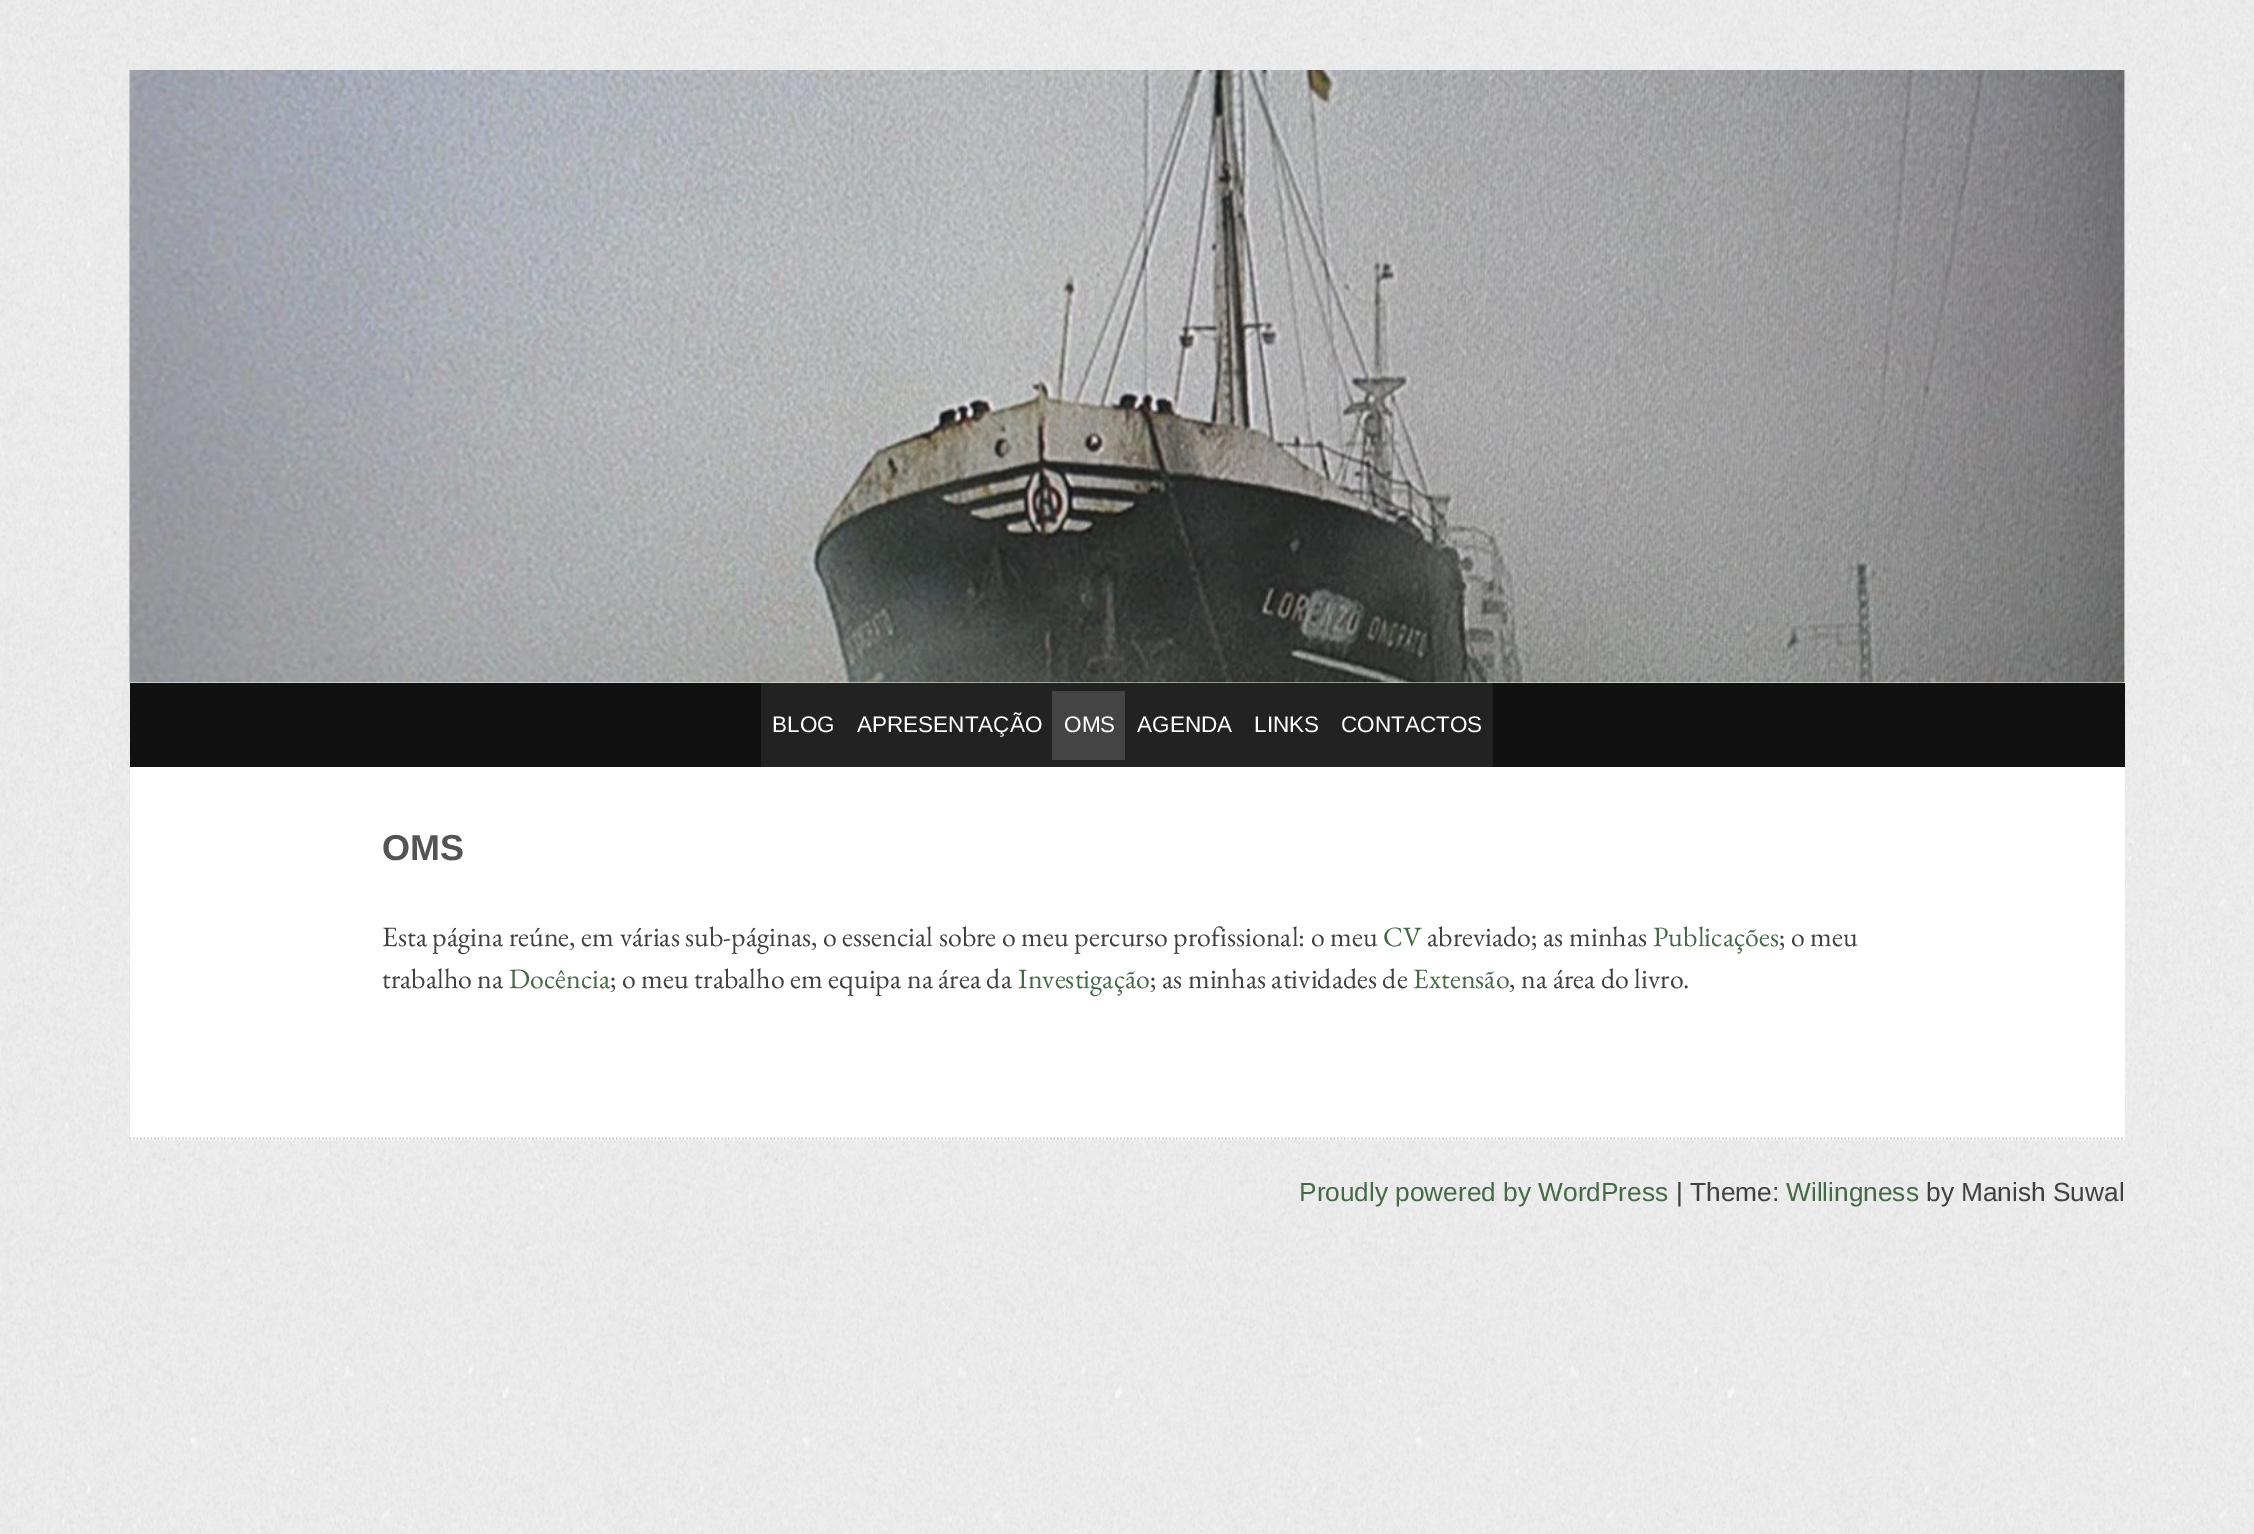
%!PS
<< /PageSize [2254 1534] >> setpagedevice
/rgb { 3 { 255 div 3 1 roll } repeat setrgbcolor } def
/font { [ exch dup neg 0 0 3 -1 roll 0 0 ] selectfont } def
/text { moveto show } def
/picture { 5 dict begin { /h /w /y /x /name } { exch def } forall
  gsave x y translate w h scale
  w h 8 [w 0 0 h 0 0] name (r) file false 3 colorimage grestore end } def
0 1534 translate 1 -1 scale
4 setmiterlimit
255 255 255 rgb
0 0 2254 1534 rectfill
(img_01.rgb) 0 0 2254 1534 picture
130 70 1995 613 rectfill
(img_02.rgb) 129 70 1996 613 picture
17 17 17 rgb
130 683 1995 84 rectfill
34 34 34 rgb
761 683 732 84 rectfill
68 68 68 rgb
1052 691 73 69 rectfill
255 255 255 rgb
130 767 1995 373 rectfill
204 204 204 rgb
1.8 setlinewidth
[1.75 1.75] 0 setdash
129.5 1138.5 moveto 1995 0 rlineto stroke
/LiberationSans-Regular 22.5 font
255 255 255 rgb
(BLOG) 772 732 text
(APRESENTAÇÃO) 857 732 text
(OMS) 1064 732 text
(AGENDA) 1137 732 text
(LINKS) 1254 732 text
(CONTACTOS) 1341 732 text
/LiberationSans-Bold 36 font
84 84 84 rgb
(OMS) 382 860 text
/EBGaramond-Regular 28 font
64 64 64 rgb
(Esta página reúne, em várias sub-páginas, o essencial sobre o meu percurso profissional: o meu) 382 946 text
68 105 69 rgb
(CV) 1383 946 text
64 64 64 rgb
(abreviado; as minhas) 1427 946 text
68 105 69 rgb
(Publicações) 1653 946 text
64 64 64 rgb
(; o meu) 1779 946 text
(trabalho na) 382 988 text
68 105 69 rgb
(Docência) 509 988 text
64 64 64 rgb
(; o meu trabalho em equipa na área da) 610 988 text
68 105 69 rgb
(Investigação) 1018 988 text
64 64 64 rgb
(; as minhas atividades de) 1150 988 text
68 105 69 rgb
(Extensão) 1413 988 text
64 64 64 rgb
(, na área do livro.) 1509 988 text
/LiberationSans-Regular 26.25 font
68 105 69 rgb
(Proudly powered by WordPress) 1299 1201 text
64 64 64 rgb
(| Theme:) 1676 1201 text
68 105 69 rgb
(Willingness) 1786 1201 text
64 64 64 rgb
(by Manish Suwal) 1926 1201 text
showpage
